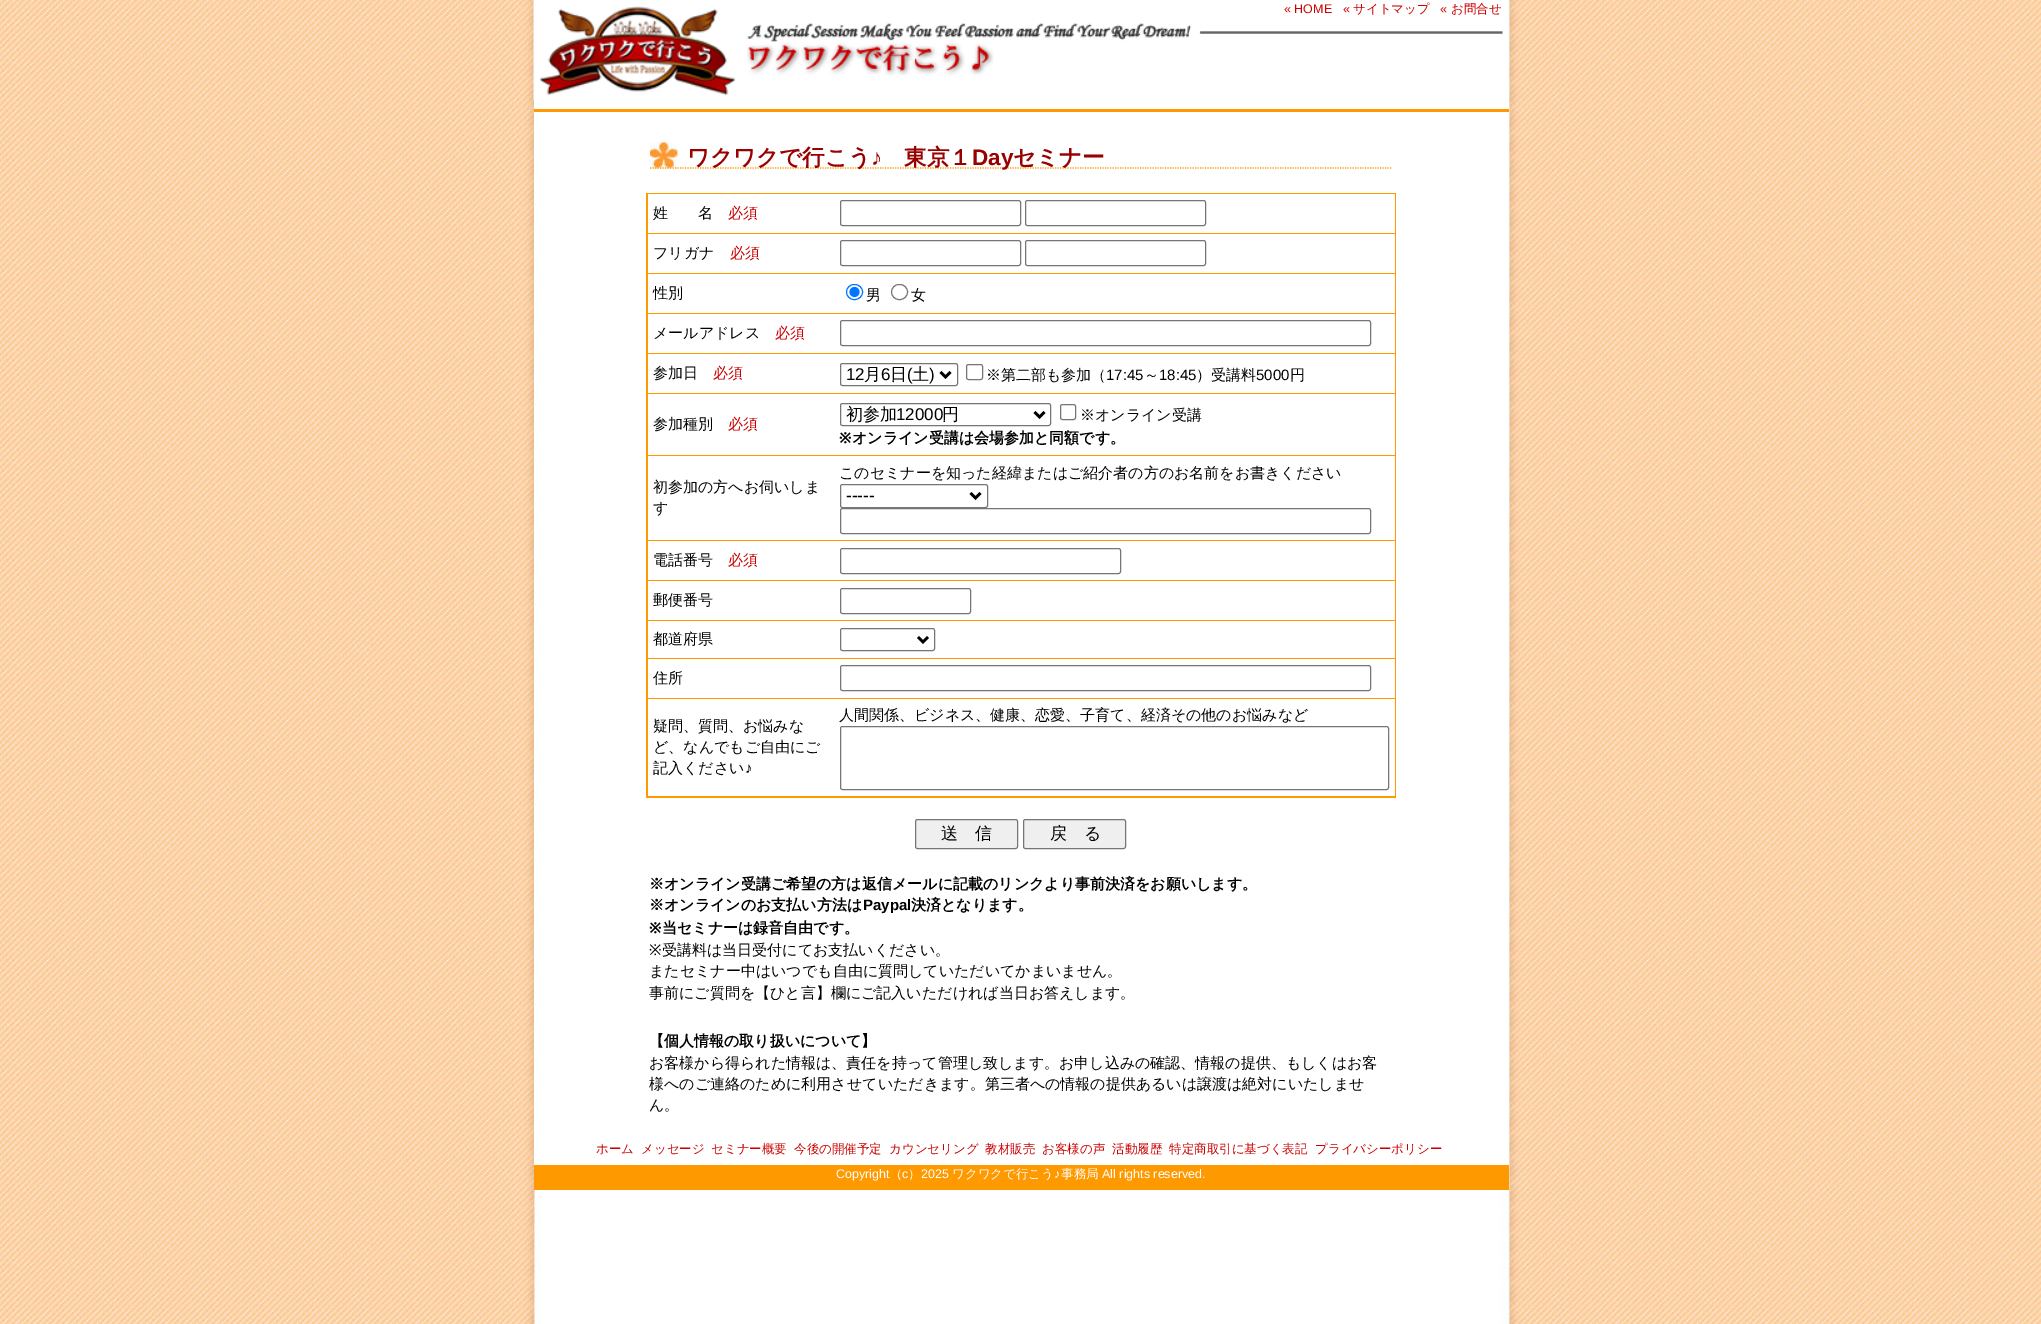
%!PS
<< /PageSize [2041 1324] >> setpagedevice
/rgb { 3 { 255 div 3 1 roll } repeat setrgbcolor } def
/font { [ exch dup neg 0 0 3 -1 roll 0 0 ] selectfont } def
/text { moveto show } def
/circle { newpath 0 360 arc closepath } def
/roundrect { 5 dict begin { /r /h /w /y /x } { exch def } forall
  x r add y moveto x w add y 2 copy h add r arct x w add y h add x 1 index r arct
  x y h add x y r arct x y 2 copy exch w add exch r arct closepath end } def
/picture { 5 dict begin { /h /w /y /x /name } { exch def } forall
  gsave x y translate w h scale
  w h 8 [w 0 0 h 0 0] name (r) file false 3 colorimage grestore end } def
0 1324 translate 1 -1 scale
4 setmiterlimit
255 255 255 rgb
0 0 2041 1324 rectfill
(img_01.rgb) 0 0 2041 1324 picture
534 0 975 1165 rectfill
(img_02.rgb) 533 0 970 100 picture
(img_03.rgb) 533 0 203 100 picture
255 153 0 rgb
534 109 975 3 rectfill
(img_04.rgb) 650 142 28 27 picture
1.2 setlinewidth
[1.25 1.25] 0 setdash
650 168 moveto 742.5 0 rlineto stroke
646 193 750 605 rectfill
255 255 255 rgb
648 194 747 39 rectfill
118 118 118 rgb
1 setlinewidth
[] 0 setdash
840.5 200.5 180 25 2 roundrect stroke
1025.5 200.5 180 25 2 roundrect stroke
255 255 255 rgb
648 234 747 39 rectfill
118 118 118 rgb
840.5 240.5 180 25 2 roundrect stroke
1025.5 240.5 180 25 2 roundrect stroke
255 255 255 rgb
648 274 747 39 rectfill
0 117 255 rgb
846.5 284.5 16 15 7.5 roundrect stroke
854.5 292 5 circle fill
118 118 118 rgb
891.5 284.5 16 15 7.5 roundrect stroke
255 255 255 rgb
648 314 747 39 rectfill
118 118 118 rgb
840.5 320.5 530 25 2 roundrect stroke
255 255 255 rgb
648 354 747 39 rectfill
118 118 118 rgb
840.5 363.5 117 22 2 roundrect stroke
0 0 0 rgb
2.5 setlinewidth
940.5 372 moveto 5 5 rlineto 5 -5 rlineto stroke
118 118 118 rgb
1 setlinewidth
966.5 364.5 16 15 2 roundrect stroke
255 255 255 rgb
648 394 747 61 rectfill
118 118 118 rgb
840.5 403.5 210 22 2 roundrect stroke
0 0 0 rgb
2.5 setlinewidth
1034.5 412 moveto 5 5 rlineto 5 -5 rlineto stroke
118 118 118 rgb
1 setlinewidth
1060.5 404.5 15 15 2 roundrect stroke
255 255 255 rgb
648 456 747 84 rectfill
118 118 118 rgb
840.5 484.5 147 23 2 roundrect stroke
0 0 0 rgb
2.5 setlinewidth
970.5 493 moveto 5 5 rlineto 5 -5 rlineto stroke
118 118 118 rgb
1 setlinewidth
840.5 508.5 530 25 2 roundrect stroke
255 255 255 rgb
648 541 747 39 rectfill
118 118 118 rgb
840.5 548.5 280 25 2 roundrect stroke
255 255 255 rgb
648 581 747 39 rectfill
118 118 118 rgb
840.5 588.5 130 25 2 roundrect stroke
255 255 255 rgb
648 621 747 37 rectfill
118 118 118 rgb
840.5 628.5 94 22 2 roundrect stroke
0 0 0 rgb
2.5 setlinewidth
918 637 moveto 5 5 rlineto 5 -5 rlineto stroke
255 255 255 rgb
648 659 747 39 rectfill
118 118 118 rgb
1 setlinewidth
840.5 665.5 530 25 2 roundrect stroke
255 255 255 rgb
648 699 747 97 rectfill
118 118 118 rgb
840.5 726.5 548 63 2 roundrect stroke
239 239 239 rgb
915.5 819.5 102 29 2 roundrect gsave fill grestore
118 118 118 rgb
stroke
239 239 239 rgb
1023.5 819.5 102 29 2 roundrect gsave fill grestore
118 118 118 rgb
stroke
255 153 0 rgb
534 1165 975 25 rectfill
/LiberationSans-Regular 12.5 font
204 0 0 rgb
(« HOME) 1284 13 text
(«) 1343 13 text
/WenQuanYiZenHei-Medium 12.5 font
(サイトマップ) 1353 13 text
/LiberationSans-Regular 12.5 font
(«) 1440 13 text
/WenQuanYiZenHei-Medium 12.5 font
(お問合せ) 1451 13 text
/WenQuanYiZenHei-Bold 22.5 font
153 0 0 rgb
(ワクワクで行こう) 687 165 text
/LiberationSans-Bold 22.5 font
(♪) 871 165 text
/WenQuanYiZenHei-Bold 22.5 font
(東京１) 904 165 text
/LiberationSans-Bold 22.5 font
(Day) 972 165 text
/WenQuanYiZenHei-Bold 22.5 font
(セミナー) 1013 165 text
/WenQuanYiZenHei-Medium 15 font
0 0 0 rgb
(姓　　名) 653 218 text
204 0 0 rgb
(必須) 728 218 text
0 0 0 rgb
(フリガナ) 653 258 text
204 0 0 rgb
(必須) 730 258 text
0 0 0 rgb
(性別) 653 298 text
(男) 866 300 text
(女) 911 300 text
(メールアドレス) 653 338 text
204 0 0 rgb
(必須) 775 338 text
0 0 0 rgb
(参加日) 653 378 text
204 0 0 rgb
(必須) 713 378 text
/LiberationSans-Regular 17 font
0 0 0 rgb
(12) 846 380 text
/WenQuanYiZenHei-Medium 17 font
(月) 864 380 text
/LiberationSans-Regular 17 font
(6) 881 380 text
/WenQuanYiZenHei-Medium 17 font
(日) 890 380 text
/LiberationSans-Regular 17 font
(\() 907 380 text
/WenQuanYiZenHei-Medium 17 font
(土) 912 380 text
/LiberationSans-Regular 17 font
(\)) 929 380 text
/WenQuanYiZenHei-Medium 15 font
(※第二部も参加（) 986 380 text
/LiberationSans-Regular 15 font
(17:45) 1106 380 text
/WenQuanYiZenHei-Medium 15 font
(～) 1144 380 text
/LiberationSans-Regular 15 font
(18:45) 1159 380 text
/WenQuanYiZenHei-Medium 15 font
(）受講料) 1196 380 text
/LiberationSans-Regular 15 font
(5000) 1256 380 text
/WenQuanYiZenHei-Medium 15 font
(円) 1290 380 text
(参加種別) 653 429 text
204 0 0 rgb
(必須) 728 429 text
/WenQuanYiZenHei-Medium 17 font
0 0 0 rgb
(初参加) 846 420 text
/LiberationSans-Regular 17 font
(12000) 896 420 text
/WenQuanYiZenHei-Medium 17 font
(円) 942 420 text
/WenQuanYiZenHei-Medium 15 font
(※オンライン受講) 1080 420 text
/NotoSans-Bold 15 font
(※) 839 443 text
/WenQuanYiZenHei-Bold 15 font
(オンライン受講は会場参加と同額です。) 852 443 text
/WenQuanYiZenHei-Medium 15 font
(初参加の方へお伺いしま) 653 492 text
(す) 653 513 text
(このセミナーを知った経緯またはご紹介者の方のお名前をお書きください) 839 478 text
/LiberationSans-Regular 17 font
(-----) 846 501 text
/WenQuanYiZenHei-Medium 15 font
(電話番号) 653 565 text
204 0 0 rgb
(必須) 728 565 text
0 0 0 rgb
(郵便番号) 653 605 text
(都道府県) 653 644 text
(住所) 653 683 text
(人間関係、ビジネス、健康、恋愛、子育て、経済その他のお悩みなど) 839 720 text
(疑問、質問、お悩みな) 653 731 text
(ど、なんでもご自由にご) 653 752 text
(記入ください) 653 773 text
/LiberationSans-Regular 15 font
(♪) 745 773 text
/WenQuanYiZenHei-Medium 17 font
(送　信) 941 839 text
(戻　る) 1050 839 text
/WenQuanYiZenHei-Bold 15 font
(※オンライン受講ご希望の方は返信メールに記載のリンクより事前決済をお願いします。) 649 889 text
(※オンラインのお支払い方法は) 649 910 text
/LiberationSans-Bold 15 font
(Paypal) 863 910 text
/WenQuanYiZenHei-Bold 15 font
(決済となります。) 911 910 text
/NotoSans-Bold 15 font
(※) 649 933 text
/WenQuanYiZenHei-Bold 15 font
(当セミナーは録音自由です。) 662 933 text
/NotoSans-Regular 15 font
(※) 649 955 text
/WenQuanYiZenHei-Medium 15 font
(受講料は当日受付にてお支払いください。) 662 955 text
(またセミナー中はいつでも自由に質問していただいてかまいません。) 649 976 text
(事前にご質問を【ひと言】欄にご記入いただければ当日お答えします。) 649 998 text
/WenQuanYiZenHei-Bold 15 font
(【個人情報の取り扱いについて】) 649 1046 text
/WenQuanYiZenHei-Medium 15 font
(お客様から得られた情報は、責任を持って管理し致します。お申し込みの確認、情報の提供、もしくはお客) 649 1068 text
(様へのご連絡のために利用させていただきます。第三者への情報の提供あるいは譲渡は絶対にいたしませ) 649 1089 text
(ん。) 649 1110 text
/WenQuanYiZenHei-Medium 12.5 font
204 0 0 rgb
(ホーム) 596 1153 text
(メッセージ) 641 1153 text
(セミナー概要) 711 1153 text
(今後の開催予定) 794 1153 text
(カウンセリング) 889 1153 text
(教材販売) 985 1153 text
(お客様の声) 1042 1153 text
(活動履歴) 1112 1153 text
(特定商取引に基づく表記) 1169 1153 text
(プライバシーポリシー) 1315 1153 text
/LiberationSans-Regular 12.5 font
255 255 255 rgb
(Copyright) 836 1178 text
/WenQuanYiZenHei-Medium 12.5 font
(（) 890 1178 text
/LiberationSans-Regular 12.5 font
(c) 902 1178 text
/WenQuanYiZenHei-Medium 12.5 font
(）) 908 1178 text
/LiberationSans-Regular 12.5 font
(2025) 921 1178 text
/WenQuanYiZenHei-Medium 12.5 font
(ワクワクで行こう) 952 1178 text
/LiberationSans-Regular 12.5 font
(♪) 1054 1178 text
/WenQuanYiZenHei-Medium 12.5 font
(事務局) 1061 1178 text
/LiberationSans-Regular 12.5 font
(All rights reserved.) 1102 1178 text
showpage
